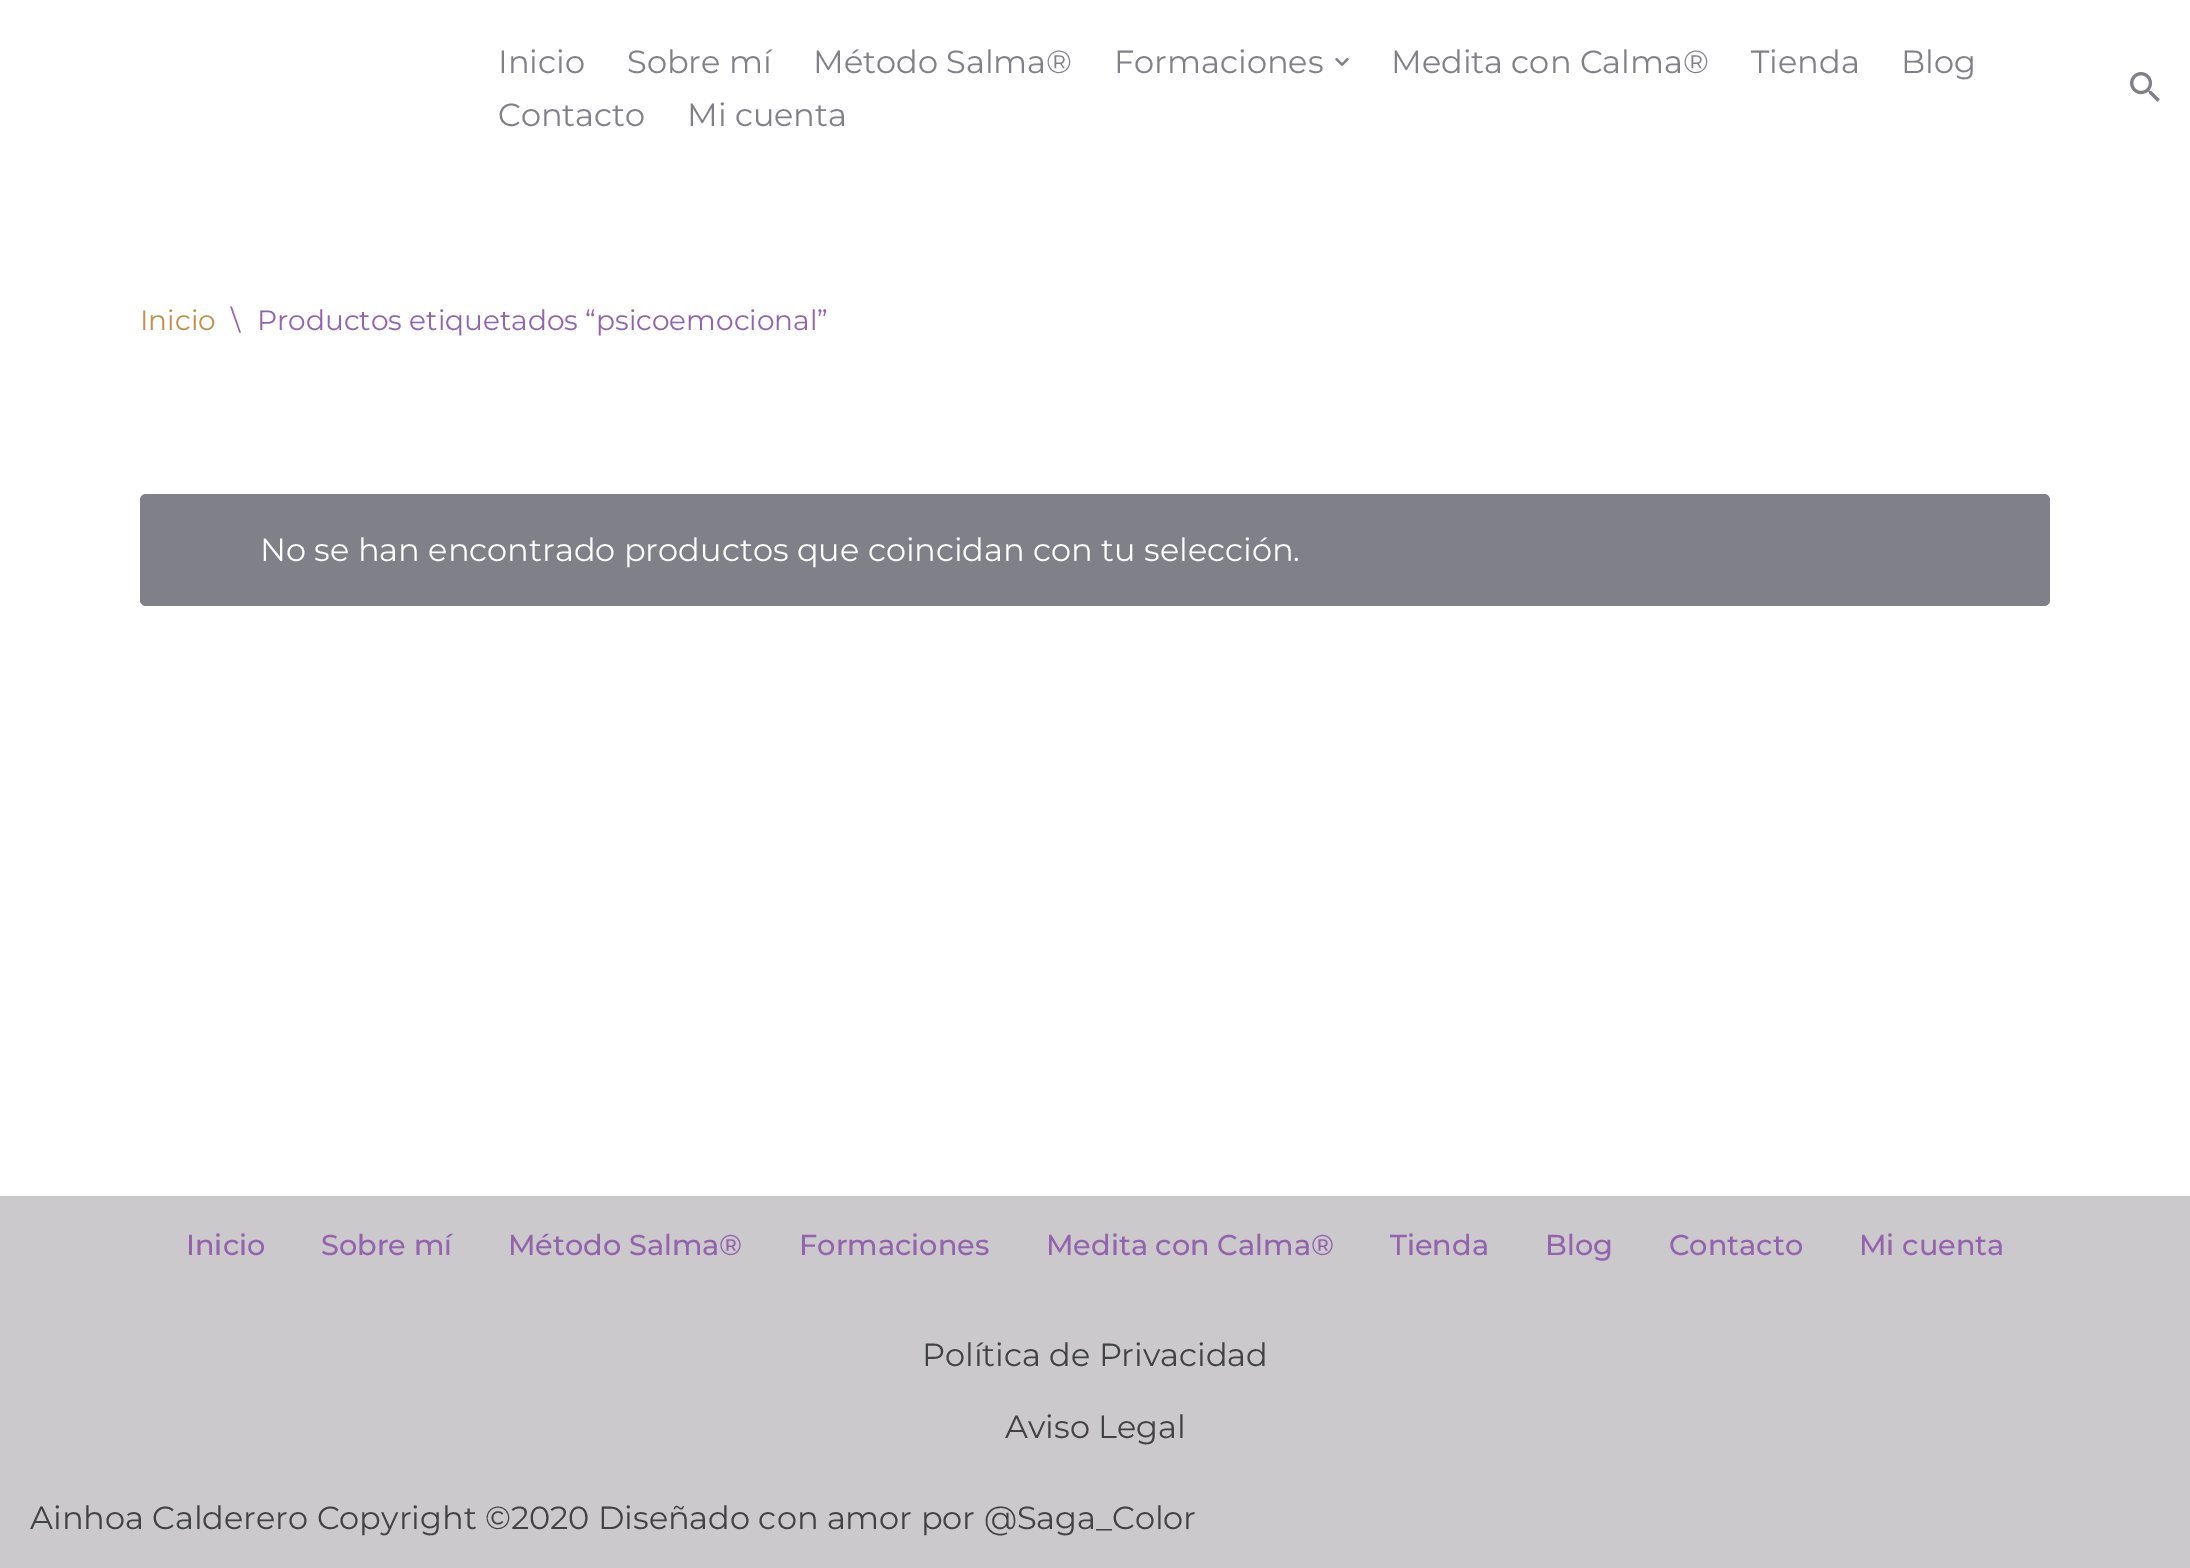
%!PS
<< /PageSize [2190 1568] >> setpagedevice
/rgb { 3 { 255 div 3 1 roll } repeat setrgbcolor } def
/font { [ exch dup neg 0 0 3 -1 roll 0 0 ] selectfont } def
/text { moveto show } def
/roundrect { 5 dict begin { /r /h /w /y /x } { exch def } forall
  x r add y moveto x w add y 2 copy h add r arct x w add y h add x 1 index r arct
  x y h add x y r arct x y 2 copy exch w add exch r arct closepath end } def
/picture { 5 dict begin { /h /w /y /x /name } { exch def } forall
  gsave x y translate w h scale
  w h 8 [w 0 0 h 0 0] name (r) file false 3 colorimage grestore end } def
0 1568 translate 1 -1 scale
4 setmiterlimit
255 255 255 rgb
0 0 2190 1568 rectfill
(img_01.rgb) 1335 57 14 9 picture
(img_02.rgb) 2130 72 30 30 picture
128 128 136 rgb
140 494 1910 112 6 roundrect fill
204 201 205 rgb
0 1196 2190 372 rectfill
/Montserrat-Regular 32 font
128 128 136 rgb
(Inicio) 498 73 text
(Sobre mí) 627 73 text
(Método Salma®) 813 73 text
(Formaciones) 1114 73 text
(Medita con Calma®) 1391 73 text
(Tienda) 1751 73 text
(Blog) 1901 73 text
(Contacto) 498 126 text
(Mi cuenta) 687 126 text
/Montserrat-Regular 28 font
191 146 75 rgb
(Inicio) 140 330 text
148 99 174 rgb
(\\) 231 330 text
(Productos etiquetados “psicoemocional”) 257 330 text
/Montserrat-Regular 32 font
255 255 255 rgb
(No se han encontrado productos que coincidan con tu selección.) 260 561 text
/Montserrat-Medium 28.75 font
148 99 174 rgb
(Inicio) 186 1255 text
(Sobre mí) 321 1255 text
(Método Salma®) 508 1255 text
(Formaciones) 799 1255 text
(Medita con Calma®) 1046 1255 text
(Tienda) 1390 1255 text
(Blog) 1545 1255 text
(Contacto) 1669 1255 text
(Mi cuenta) 1859 1255 text
/Montserrat-Regular 32 font
64 66 67 rgb
(Política de Privacidad) 922 1366 text
(Aviso Legal) 1005 1438 text
(Ainhoa Calderero Copyright ©2020 Diseñado con amor por @Saga_Color) 30 1529 text
showpage
